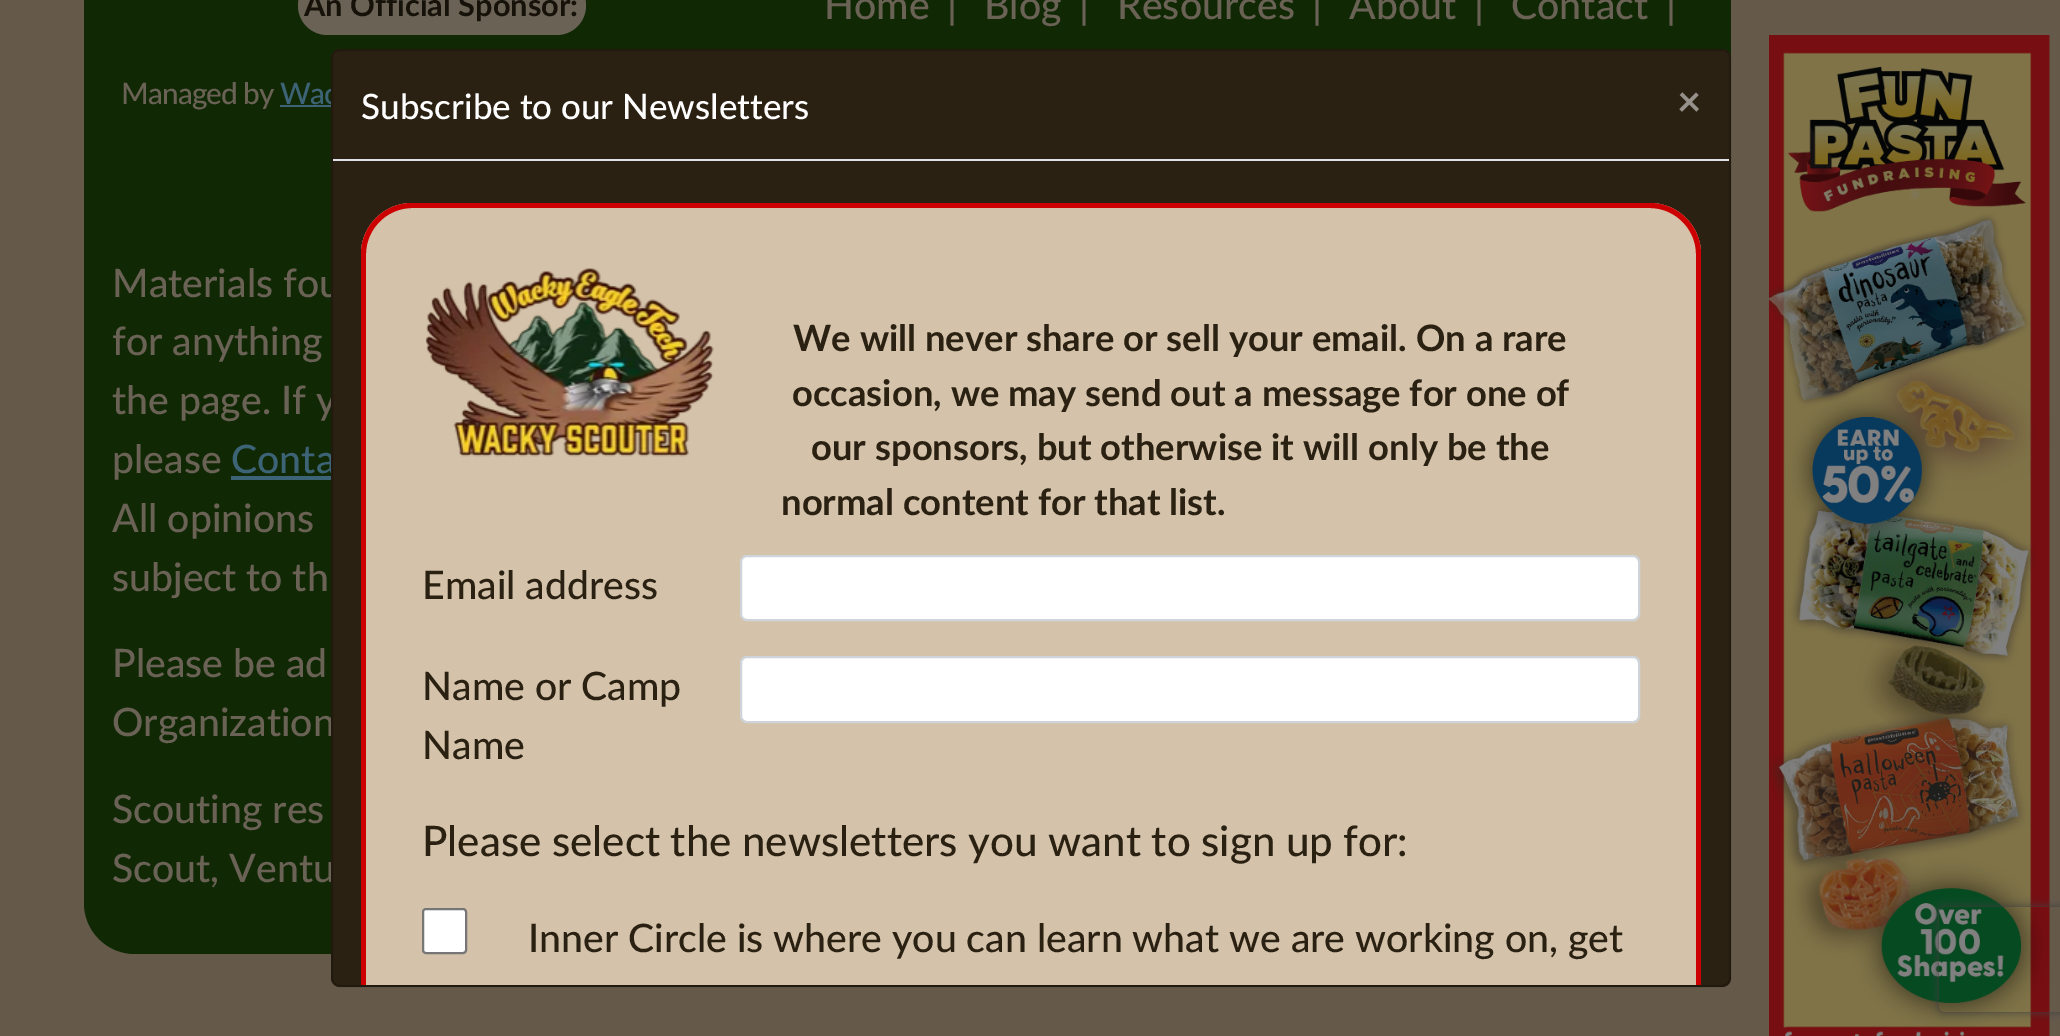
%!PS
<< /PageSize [2060 1036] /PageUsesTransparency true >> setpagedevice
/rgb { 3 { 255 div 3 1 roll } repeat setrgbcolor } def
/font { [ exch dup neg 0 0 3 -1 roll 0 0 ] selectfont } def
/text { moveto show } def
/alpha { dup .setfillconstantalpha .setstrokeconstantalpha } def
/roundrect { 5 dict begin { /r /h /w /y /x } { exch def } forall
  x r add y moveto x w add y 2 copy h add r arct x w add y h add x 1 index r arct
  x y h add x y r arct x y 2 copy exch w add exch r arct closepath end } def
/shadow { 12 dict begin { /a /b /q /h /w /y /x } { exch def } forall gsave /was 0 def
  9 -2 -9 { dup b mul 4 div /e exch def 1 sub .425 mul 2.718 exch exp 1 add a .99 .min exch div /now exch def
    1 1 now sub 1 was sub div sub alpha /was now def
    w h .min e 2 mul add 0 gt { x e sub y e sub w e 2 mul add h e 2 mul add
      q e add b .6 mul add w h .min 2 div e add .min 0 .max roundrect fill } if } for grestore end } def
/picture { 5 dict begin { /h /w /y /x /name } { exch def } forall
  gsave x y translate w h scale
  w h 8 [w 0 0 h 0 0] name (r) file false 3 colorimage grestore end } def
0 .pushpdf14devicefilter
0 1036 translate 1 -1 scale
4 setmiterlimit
101 90 74 rgb
0 0 2060 1036 rectfill
17 40 5 rgb
84 -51 1647 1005 51 roundrect fill
106 98 85 rgb
298 -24 288 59 29.5 roundrect fill
61 99 119 rgb
280 105 51 2 rectfill
231 476 100 4 rectfill
(img_01.rgb) 1769 35 281 1001 picture
gsave
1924 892 moveto 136 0 rlineto 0 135 rlineto -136 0 rlineto closepath 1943 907 moveto 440 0 rlineto 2 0 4 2 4 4 rcurveto 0 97 rlineto 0 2 -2 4 -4 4 rcurveto -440 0 rlineto -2 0 -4 -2 -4 -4 rcurveto 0 -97 rlineto 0 -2 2 -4 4 -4 rcurveto closepath eoclip newpath
64 64 64 rgb
1939 907 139 105 4 4.5 1 shadow
grestore
/Lato-Bold 30.75 font
22 17 9 rgb
(An Official Sponsor:) 304 16 text
/Lato-Medium 29.75 font
106 98 85 rgb
121 104 moveto -0.9 0 (Managed by) ashow
61 99 119 rgb
280 104 moveto -0.9 0 (Wac) ashow
/Lato-Medium 39.2 font
106 98 85 rgb
(Home) 824 19 text
(|) 947 19 text
(Blog) 984 19 text
(|) 1079 19 text
(Resources) 1117 19 text
(|) 1312 19 text
(About) 1349 19 text
(|) 1474 19 text
(Contact) 1511 19 text
(|) 1666 19 text
(Materials fou) 112 297 text
(for anything) 112 355 text
(the page. If y) 112 414 text
(please) 112 473 text
61 99 119 rgb
(Conta) 231 473 text
106 98 85 rgb
(All opinions) 112 532 text
(subject to th) 112 591 text
(Please be ad) 112 677 text
(Organization) 112 736 text
(Scouting res) 112 823 text
(Scout, Ventu) 112 882 text
43 33 18 rgb
331 49 1400 938 9 roundrect fill
0.2 alpha
0 0 0 rgb
2 setlinewidth
332 50 1398 936 8 roundrect stroke
1 alpha
222 226 230 rgb
333 159 1396 2 rectfill
/Lato-Medium 35 font
255 255 255 rgb
(Subscribe to our Newsletters) 361 119 text
/Lato-Bold 42 font
149 144 137 rgb
(×) 1677 116 text
212 195 170 rgb
412 203 moveto 1238 0 rlineto 28 0 51 23 51 51 rcurveto 0 731 rlineto -1340 0 rlineto 0 -731 rlineto 0 -28 23 -51 51 -51 rcurveto closepath fill
204 0 0 rgb
412 203 moveto -28 0 -51 23 -51 51 rcurveto 0 731 rlineto 5 0 rlineto 0 -731 rlineto 0 -25 21 -46 46 -46 rcurveto 1238 0 rlineto 25 0 46 21 46 46 rcurveto 0 731 rlineto 5 0 rlineto 0 -731 rlineto 0 -28 -23 -51 -51 -51 rcurveto closepath fill
(img_02.rgb) 425 268 289 189 picture
/Lato-Bold 36.4 font
43 33 18 rgb
(We will never share or sell your email. On a rare) 793 351 text
(occasion, we may send out a message for one of) 792 406 text
(our sponsors, but otherwise it will only be the) 811 460 text
(normal content for that list.) 781 515 text
/Lato-Medium 39.2 font
(Email address) 422 599 text
255 255 255 rgb
741 556 898 64 6 roundrect gsave fill grestore
206 212 218 rgb
stroke
43 33 18 rgb
(Name or Camp) 422 700 text
(Name) 422 759 text
255 255 255 rgb
741 657 898 65 6 roundrect gsave fill grestore
206 212 218 rgb
stroke
/Lato-Medium 42 font
43 33 18 rgb
(Please select the newsletters you want to sign up for:) 422 856 text
255 255 255 rgb
423 909 43 44 3 roundrect gsave fill grestore
118 118 118 rgb
stroke
/Lato-Medium 39.2 font
43 33 18 rgb
(Inner Circle is where you can learn what we are working on, get) 528 952 text
.poppdf14devicefilter showpage
